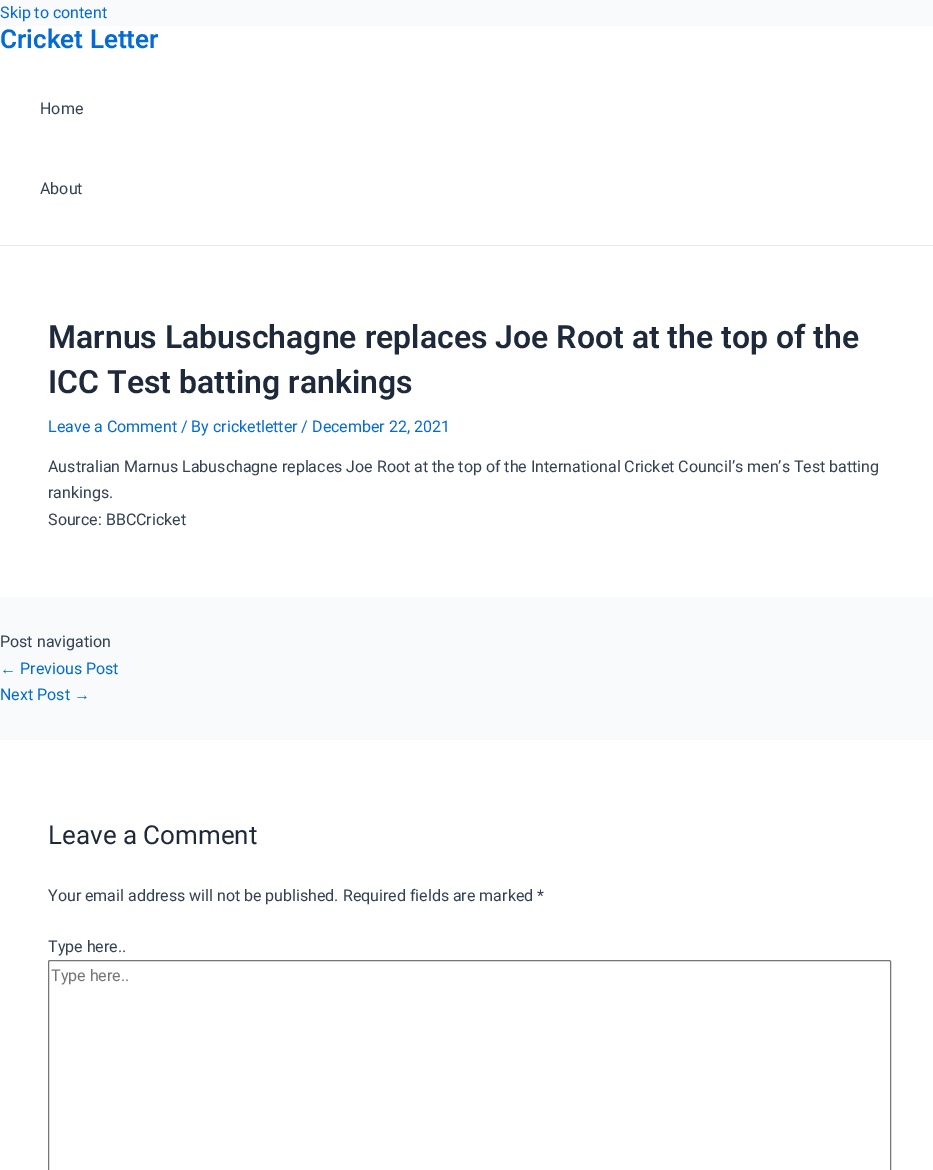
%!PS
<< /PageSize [933 1170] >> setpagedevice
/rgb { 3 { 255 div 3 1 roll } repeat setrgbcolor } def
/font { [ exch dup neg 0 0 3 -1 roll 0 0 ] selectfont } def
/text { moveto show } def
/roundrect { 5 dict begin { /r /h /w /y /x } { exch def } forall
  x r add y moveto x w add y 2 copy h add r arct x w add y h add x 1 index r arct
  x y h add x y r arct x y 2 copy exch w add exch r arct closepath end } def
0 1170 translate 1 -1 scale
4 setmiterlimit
249 250 251 rgb
0 0 933 1170 rectfill
255 255 255 rgb
0 26 933 219 rectfill
234 234 234 rgb
0 245 933 1 rectfill
255 255 255 rgb
0 246 933 351 rectfill
0 740 933 430 rectfill
118 118 118 rgb
48.5 960.5 842 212 1.5 roundrect stroke
/Roboto-Regular 16 font
4 107 210 rgb
(Skip to content) 0 18 text
/Roboto-SemiBold 26 font
(Cricket Letter) 0 48 text
/Roboto-Regular 16 font
51 65 85 rgb
(Home) 40 114 text
(About) 40 194 text
/Roboto-SemiBold 32 font
30 41 59 rgb
(Marnus Labuschagne replaces Joe Root at the top of the) 48 348 text
(ICC Test batting rankings) 48 393 text
/Roboto-Regular 16 font
4 107 210 rgb
(Leave a Comment / By cricketletter / December 22, 2021) 48 432 text
51 65 85 rgb
(Australian Marnus Labuschagne replaces Joe Root at the top of the International Cricket Council’s men’s Test batting) 48 472 text
(rankings.) 48 498 text
(Source: BBCCricket) 48 525 text
(Post navigation) 0 647 text
/LiberationSans-Regular 16 font
4 107 210 rgb
(←) 0 674 text
/Roboto-Regular 16 font
(Previous Post) 20 674 text
(Next Post) 0 700 text
/LiberationSans-Regular 16 font
(→) 74 700 text
/Roboto-Regular 26 font
30 41 59 rgb
(Leave a Comment) 48 844 text
/Roboto-Regular 16 font
51 65 85 rgb
(Your email address will not be published. Required fields are marked *) 48 901 text
(Type here..) 48 952 text
117 117 117 rgb
(Type here..) 51 981 text
showpage
